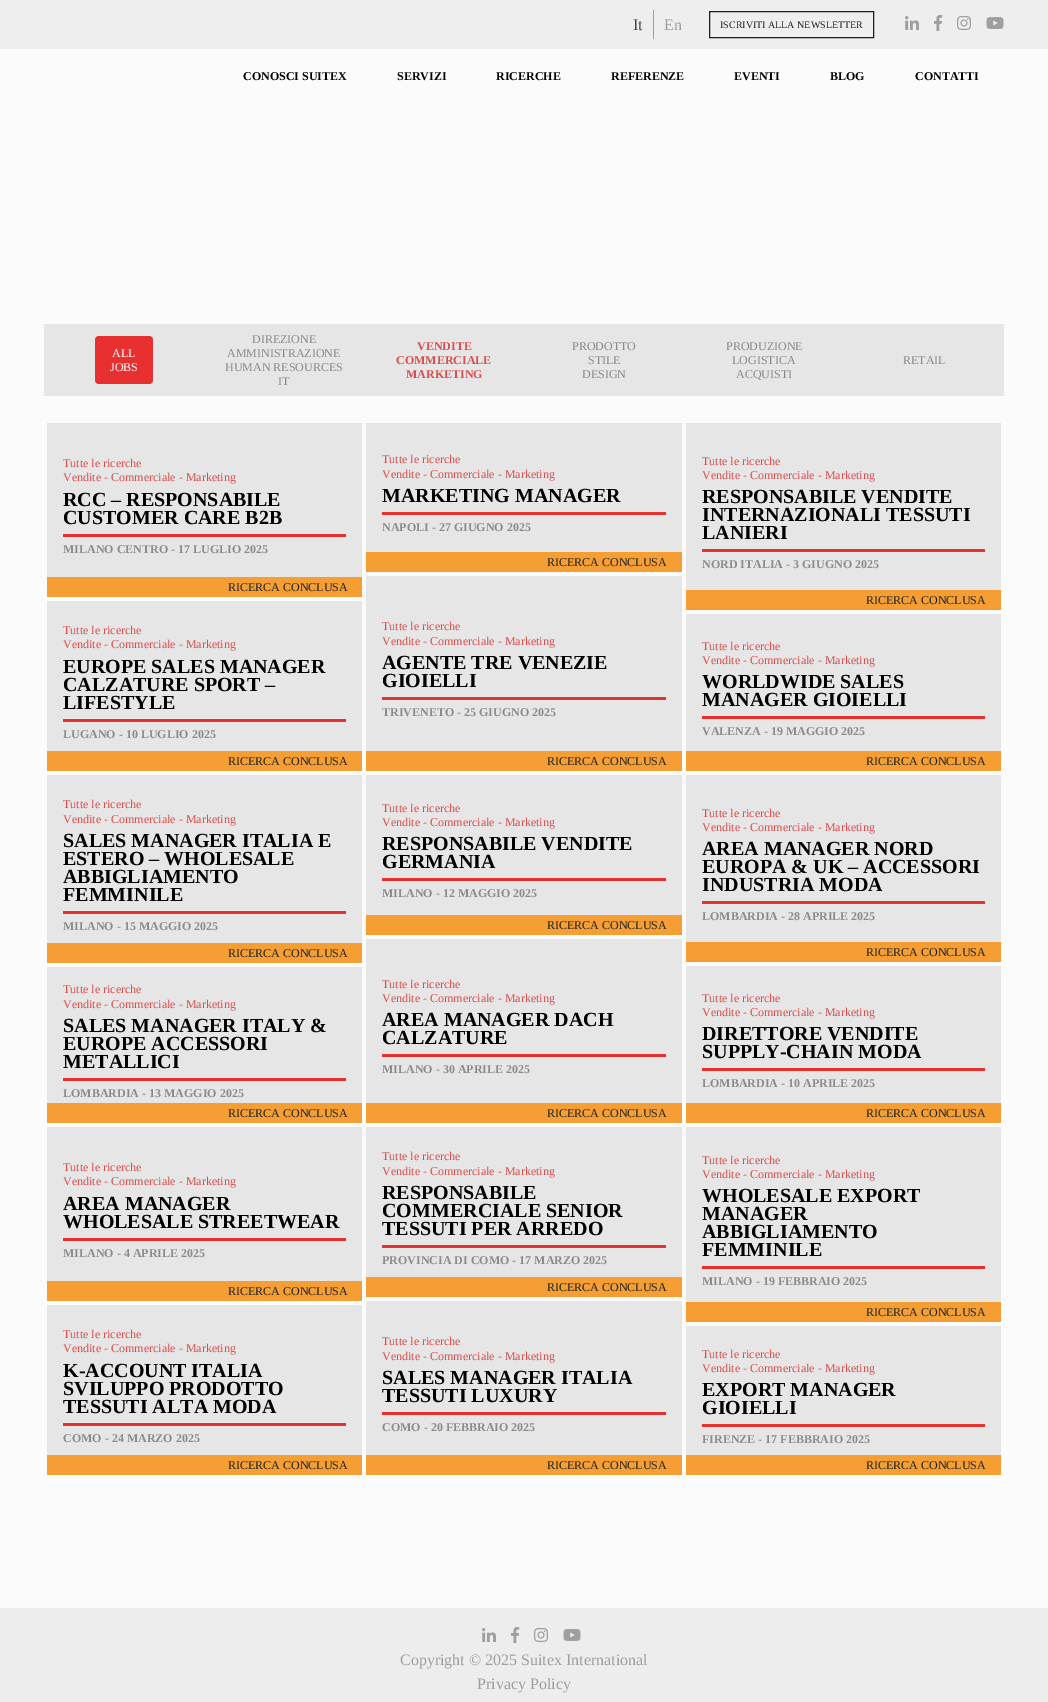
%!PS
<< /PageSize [1048 1702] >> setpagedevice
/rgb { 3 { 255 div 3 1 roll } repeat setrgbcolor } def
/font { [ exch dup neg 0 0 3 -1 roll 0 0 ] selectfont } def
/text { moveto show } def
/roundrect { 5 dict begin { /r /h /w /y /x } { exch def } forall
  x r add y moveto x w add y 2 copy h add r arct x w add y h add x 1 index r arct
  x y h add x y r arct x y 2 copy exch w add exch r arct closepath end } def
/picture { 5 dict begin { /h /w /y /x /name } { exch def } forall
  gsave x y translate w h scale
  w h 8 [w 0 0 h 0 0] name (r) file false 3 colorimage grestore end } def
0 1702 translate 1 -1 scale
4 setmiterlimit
251 251 251 rgb
0 0 1048 1702 rectfill
238 238 238 rgb
0 0 1048 49 rectfill
159 159 159 rgb
653 10 1 29 rectfill
29 29 29 rgb
709.5 11.5 164 26 rectstroke
(img_01.rgb) 905 16 14 14 picture
(img_02.rgb) 934 15 9 16 picture
(img_03.rgb) 957 16 14 14 picture
(img_04.rgb) 986 17 18 12 picture
230 230 230 rgb
44 324 960 72 rectfill
232 48 48 rgb
95 336 58 48 4 roundrect fill
230 230 230 rgb
47 423 315 154 rectfill
232 48 48 rgb
63 534 283 3 rectfill
244 158 51 rgb
47 577 315 20 rectfill
230 230 230 rgb
47 601 315 150 rectfill
232 48 48 rgb
63 719 283 3 rectfill
244 158 51 rgb
47 751 315 20 rectfill
230 230 230 rgb
366 423 316 129 rectfill
232 48 48 rgb
382 512 284 3 rectfill
244 158 51 rgb
366 552 316 20 rectfill
230 230 230 rgb
366 576 316 175 rectfill
232 48 48 rgb
382 697 284 3 rectfill
244 158 51 rgb
366 751 316 20 rectfill
230 230 230 rgb
686 423 315 167 rectfill
232 48 48 rgb
702 549 283 3 rectfill
244 158 51 rgb
686 590 315 20 rectfill
230 230 230 rgb
686 614 315 137 rectfill
232 48 48 rgb
702 716 283 3 rectfill
244 158 51 rgb
686 751 315 20 rectfill
230 230 230 rgb
47 775 315 168 rectfill
232 48 48 rgb
63 911 283 3 rectfill
244 158 51 rgb
47 943 315 20 rectfill
230 230 230 rgb
47 967 315 136 rectfill
232 48 48 rgb
63 1078 283 3 rectfill
244 158 51 rgb
47 1103 315 20 rectfill
230 230 230 rgb
366 775 316 140 rectfill
232 48 48 rgb
382 878 284 3 rectfill
244 158 51 rgb
366 915 316 20 rectfill
230 230 230 rgb
366 939 316 164 rectfill
232 48 48 rgb
382 1054 284 3 rectfill
244 158 51 rgb
366 1103 316 20 rectfill
230 230 230 rgb
686 775 315 167 rectfill
232 48 48 rgb
702 901 283 3 rectfill
244 158 51 rgb
686 942 315 20 rectfill
230 230 230 rgb
686 966 315 137 rectfill
232 48 48 rgb
702 1068 283 3 rectfill
244 158 51 rgb
686 1103 315 20 rectfill
230 230 230 rgb
47 1127 315 154 rectfill
232 48 48 rgb
63 1238 283 3 rectfill
244 158 51 rgb
47 1281 315 20 rectfill
230 230 230 rgb
47 1305 315 150 rectfill
232 48 48 rgb
63 1423 283 3 rectfill
244 158 51 rgb
47 1455 315 20 rectfill
230 230 230 rgb
366 1127 316 150 rectfill
232 48 48 rgb
382 1245 284 3 rectfill
244 158 51 rgb
366 1277 316 20 rectfill
230 230 230 rgb
366 1301 316 154 rectfill
232 48 48 rgb
382 1412 284 3 rectfill
244 158 51 rgb
366 1455 316 20 rectfill
230 230 230 rgb
686 1127 315 175 rectfill
232 48 48 rgb
702 1266 283 3 rectfill
244 158 51 rgb
686 1302 315 20 rectfill
230 230 230 rgb
686 1326 315 129 rectfill
232 48 48 rgb
702 1424 283 3 rectfill
244 158 51 rgb
686 1455 315 20 rectfill
237 237 237 rgb
0 1608 1048 94 rectfill
(img_05.rgb) 482 1628 14 14 picture
(img_06.rgb) 511 1627 9 16 picture
(img_07.rgb) 534 1628 14 14 picture
(img_08.rgb) 563 1629 18 12 picture
/LiberationSerif-Regular 16 font
68 68 68 rgb
(It) 633 30 text
159 159 159 rgb
(En) 664 30 text
/LiberationSerif-Regular 10 font
29 29 29 rgb
(ISCRIVITI ALLA NEWSLETTER) 720 28 text
/LiberationSerif-Bold 12 font
0 0 0 rgb
(CONOSCI SUITEX) 243 80 text
(SERVIZI) 397 80 text
(RICERCHE) 496 80 text
(REFERENZE) 611 80 text
(EVENTI) 734 80 text
(BLOG) 830 80 text
(CONTATTI) 915 80 text
/LiberationSerif-Regular 12 font
255 255 255 rgb
(ALL) 112 357 text
(JOBS) 110 371 text
139 139 139 rgb
(DIREZIONE) 252 343 text
(AMMINISTRAZIONE) 227 357 text
(HUMAN RESOURCES) 225 371 text
(IT) 278 385 text
/LiberationSerif-Bold 12 font
215 78 77 rgb
(VENDITE) 417 350 text
(COMMERCIALE) 396 364 text
(MARKETING) 406 378 text
/LiberationSerif-Regular 12 font
139 139 139 rgb
(PRODOTTO) 572 350 text
(STILE) 588 364 text
(DESIGN) 582 378 text
(PRODUZIONE) 726 350 text
(LOGISTICA) 732 364 text
(ACQUISTI) 736 378 text
(RETAIL) 903 364 text
215 78 77 rgb
(Tutte le ricerche) 63 467 text
(Vendite - Commerciale - Marketing) 63 481 text
/LiberationSerif-Bold 20 font
0 0 0 rgb
(RCC – RESPONSABILE) 63 506 text
(CUSTOMER CARE B2B) 63 524 text
/LiberationSerif-Bold 12 font
139 139 139 rgb
(MILANO CENTRO - 17 LUGLIO 2025) 63 553 text
/LiberationSerif-Regular 12 font
33 37 41 rgb
(RICERCA CONCLUSA) 228 591 text
215 78 77 rgb
(Tutte le ricerche) 63 634 text
(Vendite - Commerciale - Marketing) 63 648 text
/LiberationSerif-Bold 20 font
0 0 0 rgb
(EUROPE SALES MANAGER) 63 673 text
(CALZATURE SPORT –) 63 691 text
(LIFESTYLE) 63 709 text
/LiberationSerif-Bold 12 font
139 139 139 rgb
(LUGANO - 10 LUGLIO 2025) 63 738 text
/LiberationSerif-Regular 12 font
33 37 41 rgb
(RICERCA CONCLUSA) 228 765 text
215 78 77 rgb
(Tutte le ricerche) 382 463 text
(Vendite - Commerciale - Marketing) 382 478 text
/LiberationSerif-Bold 20 font
0 0 0 rgb
(MARKETING MANAGER) 382 502 text
/LiberationSerif-Bold 12 font
139 139 139 rgb
(NAPOLI - 27 GIUGNO 2025) 382 531 text
/LiberationSerif-Regular 12 font
33 37 41 rgb
(RICERCA CONCLUSA) 547 566 text
215 78 77 rgb
(Tutte le ricerche) 382 630 text
(Vendite - Commerciale - Marketing) 382 645 text
/LiberationSerif-Bold 20 font
0 0 0 rgb
(AGENTE TRE VENEZIE) 382 669 text
(GIOIELLI) 382 687 text
/LiberationSerif-Bold 12 font
139 139 139 rgb
(TRIVENETO - 25 GIUGNO 2025) 382 716 text
/LiberationSerif-Regular 12 font
33 37 41 rgb
(RICERCA CONCLUSA) 547 765 text
215 78 77 rgb
(Tutte le ricerche) 702 465 text
(Vendite - Commerciale - Marketing) 702 479 text
/LiberationSerif-Bold 20 font
0 0 0 rgb
(RESPONSABILE VENDITE) 702 503 text
(INTERNAZIONALI TESSUTI) 702 521 text
(LANIERI) 702 539 text
/LiberationSerif-Bold 12 font
139 139 139 rgb
(NORD ITALIA - 3 GIUGNO 2025) 702 568 text
/LiberationSerif-Regular 12 font
33 37 41 rgb
(RICERCA CONCLUSA) 866 604 text
215 78 77 rgb
(Tutte le ricerche) 702 650 text
(Vendite - Commerciale - Marketing) 702 664 text
/LiberationSerif-Bold 20 font
0 0 0 rgb
(WORLDWIDE SALES) 702 688 text
(MANAGER GIOIELLI) 702 706 text
/LiberationSerif-Bold 12 font
139 139 139 rgb
(VALENZA - 19 MAGGIO 2025) 702 735 text
/LiberationSerif-Regular 12 font
33 37 41 rgb
(RICERCA CONCLUSA) 866 765 text
215 78 77 rgb
(Tutte le ricerche) 63 808 text
(Vendite - Commerciale - Marketing) 63 823 text
/LiberationSerif-Bold 20 font
0 0 0 rgb
(SALES MANAGER ITALIA E) 63 847 text
(ESTERO – WHOLESALE) 63 865 text
(ABBIGLIAMENTO) 63 883 text
(FEMMINILE) 63 901 text
/LiberationSerif-Bold 12 font
139 139 139 rgb
(MILANO - 15 MAGGIO 2025) 63 930 text
/LiberationSerif-Regular 12 font
33 37 41 rgb
(RICERCA CONCLUSA) 228 957 text
215 78 77 rgb
(Tutte le ricerche) 63 993 text
(Vendite - Commerciale - Marketing) 63 1008 text
/LiberationSerif-Bold 20 font
0 0 0 rgb
(SALES MANAGER ITALY &) 63 1032 text
(EUROPE ACCESSORI) 63 1050 text
(METALLICI) 63 1068 text
/LiberationSerif-Bold 12 font
139 139 139 rgb
(LOMBARDIA - 13 MAGGIO 2025) 63 1097 text
/LiberationSerif-Regular 12 font
33 37 41 rgb
(RICERCA CONCLUSA) 228 1117 text
215 78 77 rgb
(Tutte le ricerche) 382 812 text
(Vendite - Commerciale - Marketing) 382 826 text
/LiberationSerif-Bold 20 font
0 0 0 rgb
(RESPONSABILE VENDITE) 382 850 text
(GERMANIA) 382 868 text
/LiberationSerif-Bold 12 font
139 139 139 rgb
(MILANO - 12 MAGGIO 2025) 382 897 text
/LiberationSerif-Regular 12 font
33 37 41 rgb
(RICERCA CONCLUSA) 547 929 text
215 78 77 rgb
(Tutte le ricerche) 382 988 text
(Vendite - Commerciale - Marketing) 382 1002 text
/LiberationSerif-Bold 20 font
0 0 0 rgb
(AREA MANAGER DACH) 382 1026 text
(CALZATURE) 382 1044 text
/LiberationSerif-Bold 12 font
139 139 139 rgb
(MILANO - 30 APRILE 2025) 382 1073 text
/LiberationSerif-Regular 12 font
33 37 41 rgb
(RICERCA CONCLUSA) 547 1117 text
215 78 77 rgb
(Tutte le ricerche) 702 817 text
(Vendite - Commerciale - Marketing) 702 831 text
/LiberationSerif-Bold 20 font
0 0 0 rgb
(AREA MANAGER NORD) 702 855 text
(EUROPA & UK – ACCESSORI) 702 873 text
(INDUSTRIA MODA) 702 891 text
/LiberationSerif-Bold 12 font
139 139 139 rgb
(LOMBARDIA - 28 APRILE 2025) 702 920 text
/LiberationSerif-Regular 12 font
33 37 41 rgb
(RICERCA CONCLUSA) 866 956 text
215 78 77 rgb
(Tutte le ricerche) 702 1002 text
(Vendite - Commerciale - Marketing) 702 1016 text
/LiberationSerif-Bold 20 font
0 0 0 rgb
(DIRETTORE VENDITE) 702 1040 text
(SUPPLY-CHAIN MODA) 702 1058 text
/LiberationSerif-Bold 12 font
139 139 139 rgb
(LOMBARDIA - 10 APRILE 2025) 702 1087 text
/LiberationSerif-Regular 12 font
33 37 41 rgb
(RICERCA CONCLUSA) 866 1117 text
215 78 77 rgb
(Tutte le ricerche) 63 1171 text
(Vendite - Commerciale - Marketing) 63 1185 text
/LiberationSerif-Bold 20 font
0 0 0 rgb
(AREA MANAGER) 63 1210 text
(WHOLESALE STREETWEAR) 63 1228 text
/LiberationSerif-Bold 12 font
139 139 139 rgb
(MILANO - 4 APRILE 2025) 63 1257 text
/LiberationSerif-Regular 12 font
33 37 41 rgb
(RICERCA CONCLUSA) 228 1295 text
215 78 77 rgb
(Tutte le ricerche) 63 1338 text
(Vendite - Commerciale - Marketing) 63 1352 text
/LiberationSerif-Bold 20 font
0 0 0 rgb
(K-ACCOUNT ITALIA) 63 1377 text
(SVILUPPO PRODOTTO) 63 1395 text
(TESSUTI ALTA MODA) 63 1413 text
/LiberationSerif-Bold 12 font
139 139 139 rgb
(COMO - 24 MARZO 2025) 63 1442 text
/LiberationSerif-Regular 12 font
33 37 41 rgb
(RICERCA CONCLUSA) 228 1469 text
215 78 77 rgb
(Tutte le ricerche) 382 1160 text
(Vendite - Commerciale - Marketing) 382 1175 text
/LiberationSerif-Bold 20 font
0 0 0 rgb
(RESPONSABILE) 382 1199 text
(COMMERCIALE SENIOR) 382 1217 text
(TESSUTI PER ARREDO) 382 1235 text
/LiberationSerif-Bold 12 font
139 139 139 rgb
(PROVINCIA DI COMO - 17 MARZO 2025) 382 1264 text
/LiberationSerif-Regular 12 font
33 37 41 rgb
(RICERCA CONCLUSA) 547 1291 text
215 78 77 rgb
(Tutte le ricerche) 382 1345 text
(Vendite - Commerciale - Marketing) 382 1360 text
/LiberationSerif-Bold 20 font
0 0 0 rgb
(SALES MANAGER ITALIA) 382 1384 text
(TESSUTI LUXURY) 382 1402 text
/LiberationSerif-Bold 12 font
139 139 139 rgb
(COMO - 20 FEBBRAIO 2025) 382 1431 text
/LiberationSerif-Regular 12 font
33 37 41 rgb
(RICERCA CONCLUSA) 547 1469 text
215 78 77 rgb
(Tutte le ricerche) 702 1164 text
(Vendite - Commerciale - Marketing) 702 1178 text
/LiberationSerif-Bold 20 font
0 0 0 rgb
(WHOLESALE EXPORT) 702 1202 text
(MANAGER) 702 1220 text
(ABBIGLIAMENTO) 702 1238 text
(FEMMINILE) 702 1256 text
/LiberationSerif-Bold 12 font
139 139 139 rgb
(MILANO - 19 FEBBRAIO 2025) 702 1285 text
/LiberationSerif-Regular 12 font
33 37 41 rgb
(RICERCA CONCLUSA) 866 1316 text
215 78 77 rgb
(Tutte le ricerche) 702 1358 text
(Vendite - Commerciale - Marketing) 702 1372 text
/LiberationSerif-Bold 20 font
0 0 0 rgb
(EXPORT MANAGER) 702 1396 text
(GIOIELLI) 702 1414 text
/LiberationSerif-Bold 12 font
139 139 139 rgb
(FIRENZE - 17 FEBBRAIO 2025) 702 1443 text
/LiberationSerif-Regular 12 font
33 37 41 rgb
(RICERCA CONCLUSA) 866 1469 text
/LiberationSerif-Regular 16 font
159 159 159 rgb
(Copyright © 2025 Suitex International) 400 1665 text
(Privacy Policy) 477 1689 text
showpage
